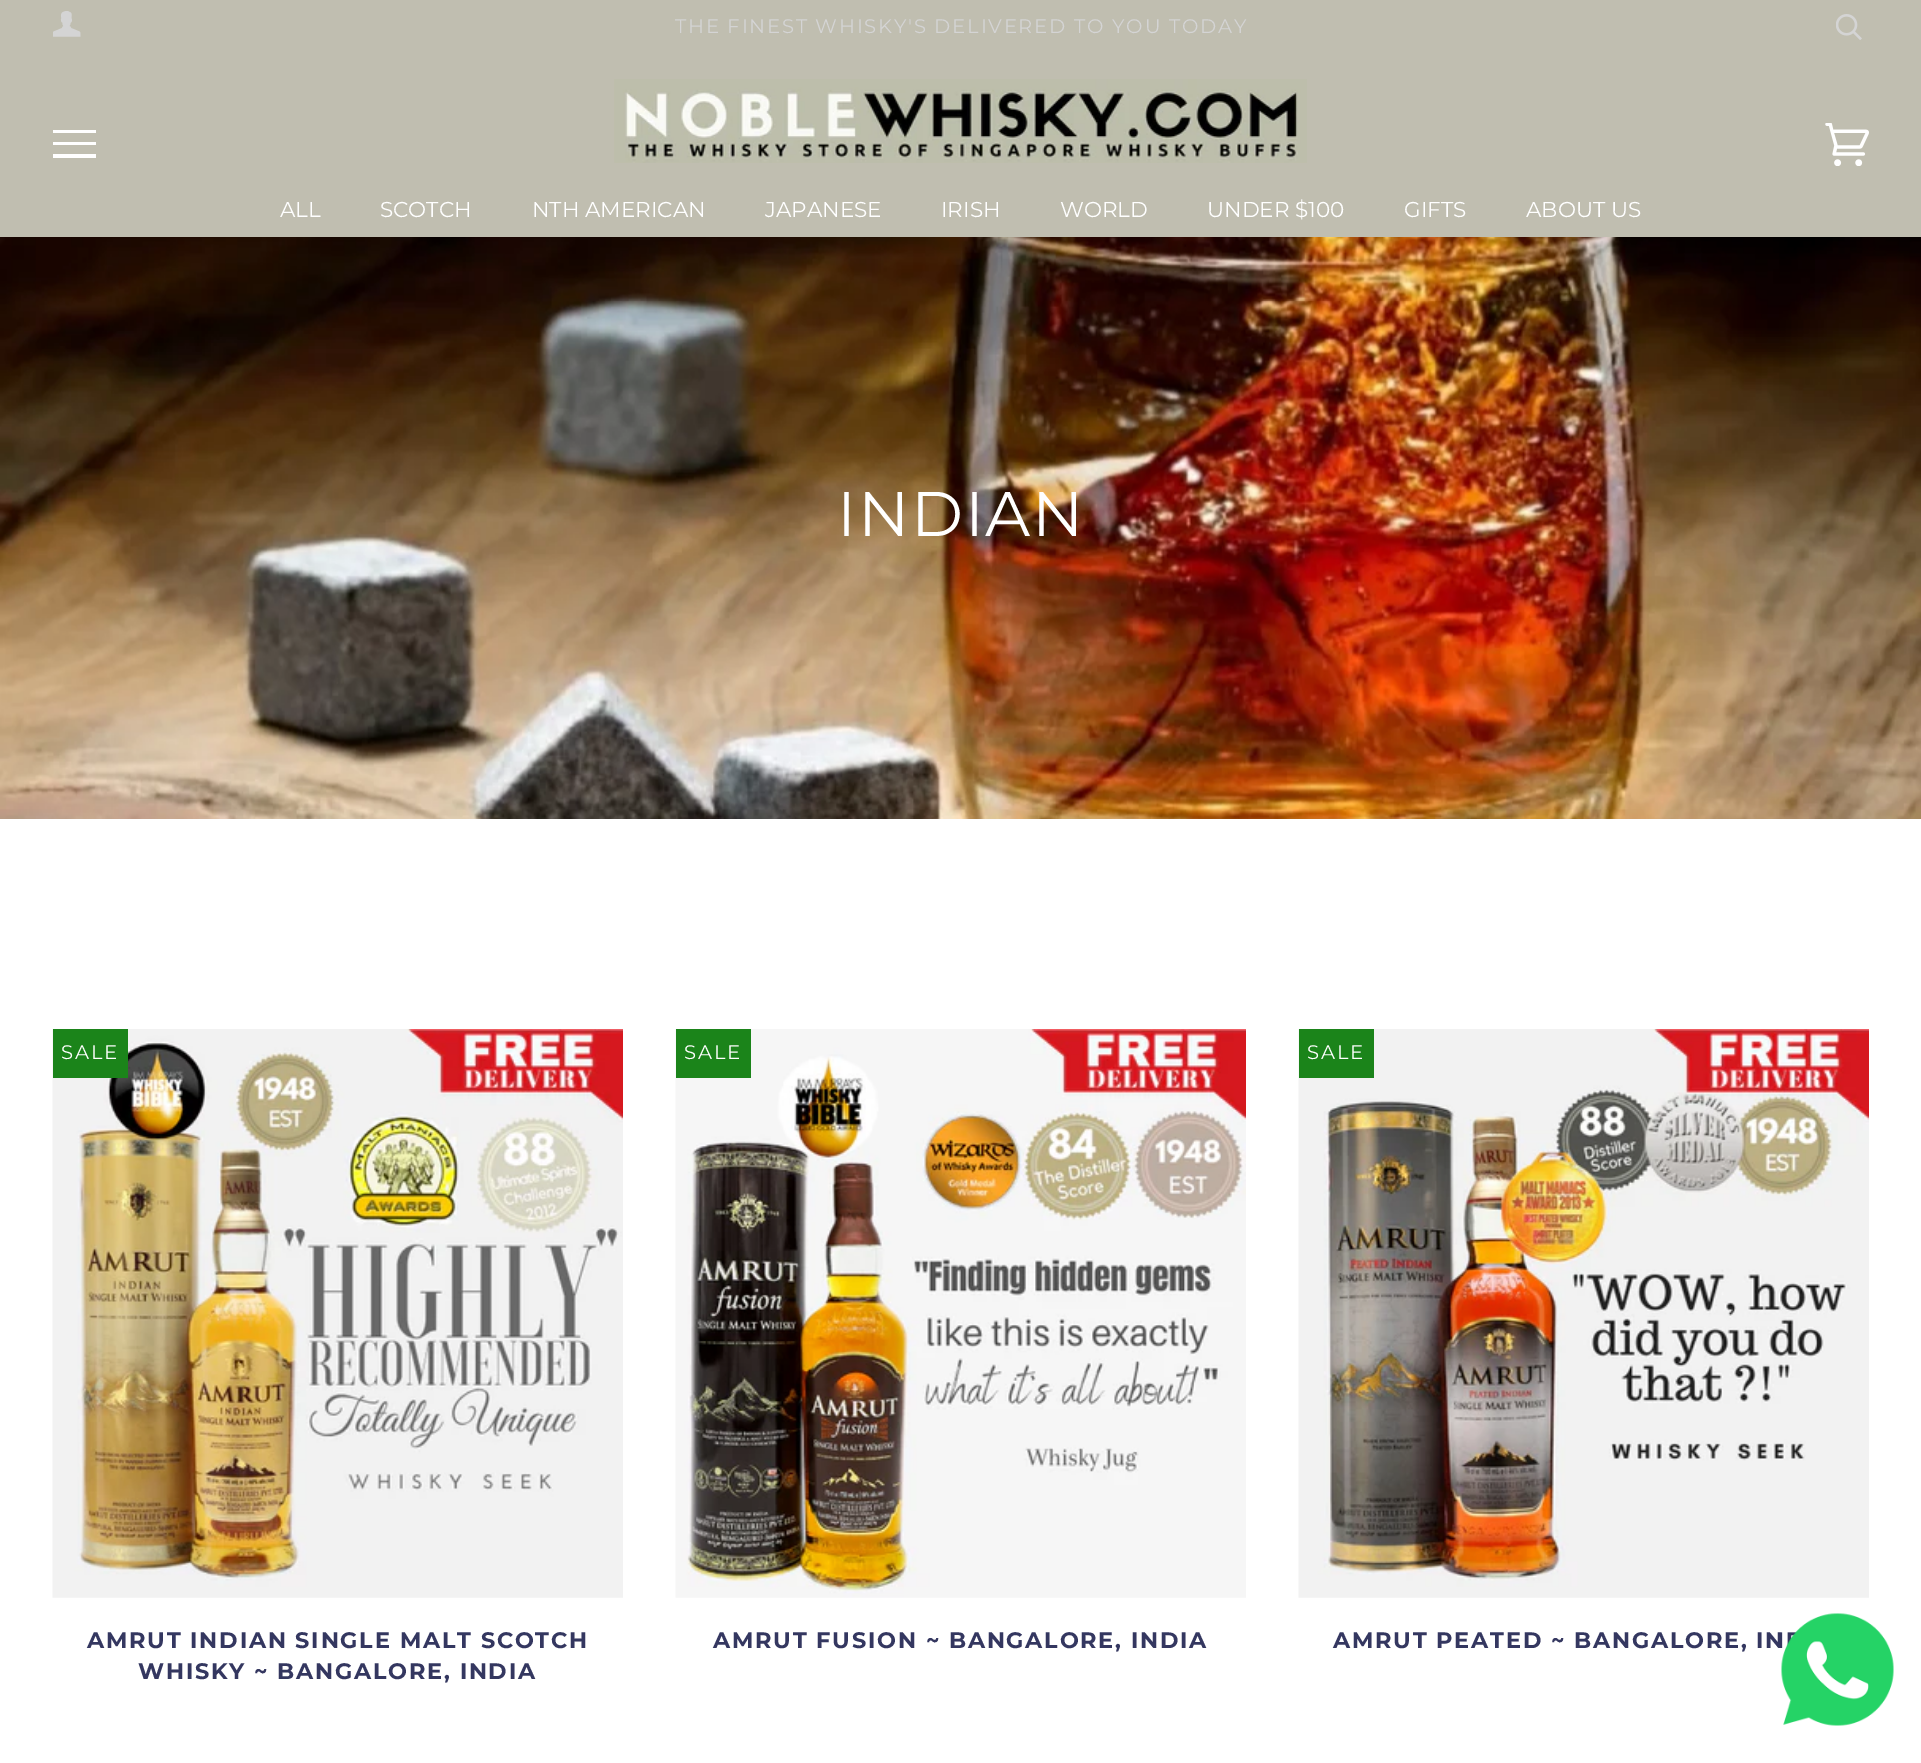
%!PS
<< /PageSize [1921 1763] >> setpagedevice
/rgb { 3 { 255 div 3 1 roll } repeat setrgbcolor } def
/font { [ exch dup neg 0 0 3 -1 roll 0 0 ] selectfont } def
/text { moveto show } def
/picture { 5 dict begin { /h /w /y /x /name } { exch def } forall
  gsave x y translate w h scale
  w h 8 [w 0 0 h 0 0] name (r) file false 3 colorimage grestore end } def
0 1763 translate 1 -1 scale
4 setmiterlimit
255 255 255 rgb
0 0 1921 1763 rectfill
192 190 176 rgb
0 0 1921 237 rectfill
(img_01.rgb) 53 11 28 26 picture
(img_02.rgb) 1836 14 26 26 picture
255 255 255 rgb
53 130 43 3 rectfill
53 142 43 3 rectfill
53 154 43 4 rectfill
(img_03.rgb) 614 79 693 84 picture
(img_04.rgb) 1825 123 44 43 picture
(img_05.rgb) 0 237 1921 582 picture
(img_06.rgb) 52 1029 571 569 picture
27 132 26 rgb
53 1029 75 49 rectfill
(img_07.rgb) 675 1029 571 569 picture
676 1029 75 49 rectfill
(img_08.rgb) 1298 1029 571 569 picture
1299 1029 75 49 rectfill
/Montserrat-Regular 19.6 font
212 212 212 rgb
675 33 moveto 1.75 0 (THE FINEST WHISKY'S DELIVERED TO YOU TODAY) ashow
/Montserrat-Regular 21.5 font
255 255 255 rgb
(ALL) 280 217 text
(SCOTCH) 380 217 text
(NTH AMERICAN) 532 217 text
(JAPANESE) 765 217 text
(IRISH) 941 217 text
(WORLD) 1060 217 text
(UNDER $100) 1207 217 text
(GIFTS) 1404 217 text
(ABOUT US) 1526 217 text
/Montserrat-Regular 63 font
837 536 moveto 1.75 0 (INDIAN) ashow
/Montserrat-Regular 19.6 font
61 1059 moveto 1.75 0 (SALE) ashow
/Montserrat-Bold 22.4 font
52 55 96 rgb
87 1648 moveto 1.75 0 (AMRUT INDIAN SINGLE MALT SCOTCH) ashow
138 1679 moveto 1.75 0 (WHISKY ~ BANGALORE, INDIA) ashow
/Montserrat-Regular 19.6 font
255 255 255 rgb
684 1059 moveto 1.75 0 (SALE) ashow
/Montserrat-Bold 22.4 font
52 55 96 rgb
713 1648 moveto 1.75 0 (AMRUT FUSION ~ BANGALORE, INDIA) ashow
/Montserrat-Regular 19.6 font
255 255 255 rgb
1307 1059 moveto 1.75 0 (SALE) ashow
/Montserrat-Bold 22.4 font
52 55 96 rgb
1333 1648 moveto 1.75 0 (AMRUT PEATED ~ BANGALORE, IN) ashow
(img_09.rgb) 1781 1613 113 113 picture
showpage
